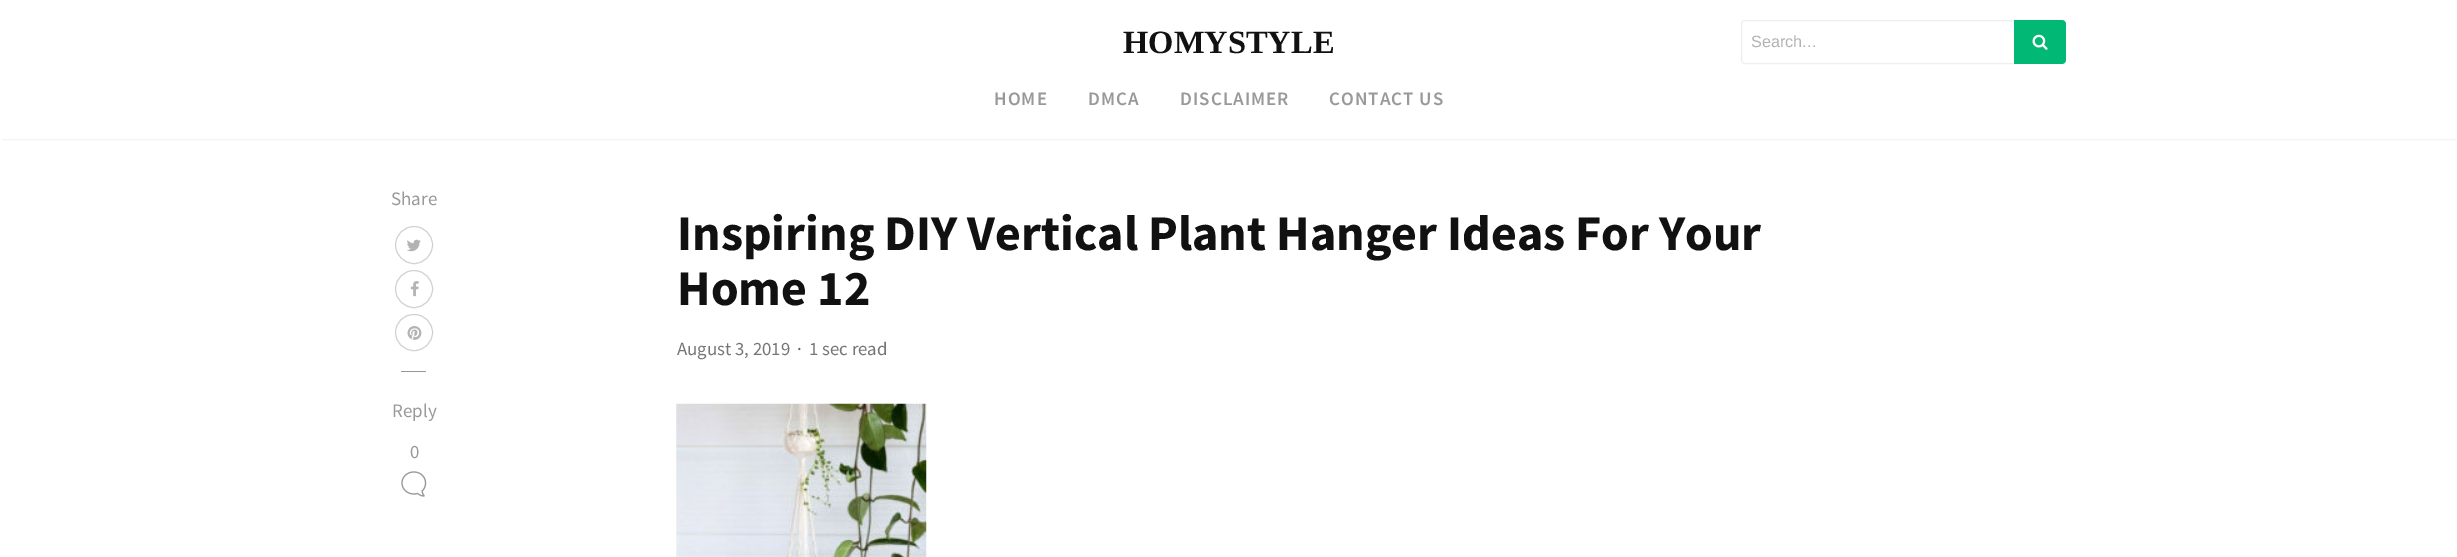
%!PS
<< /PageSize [2457 557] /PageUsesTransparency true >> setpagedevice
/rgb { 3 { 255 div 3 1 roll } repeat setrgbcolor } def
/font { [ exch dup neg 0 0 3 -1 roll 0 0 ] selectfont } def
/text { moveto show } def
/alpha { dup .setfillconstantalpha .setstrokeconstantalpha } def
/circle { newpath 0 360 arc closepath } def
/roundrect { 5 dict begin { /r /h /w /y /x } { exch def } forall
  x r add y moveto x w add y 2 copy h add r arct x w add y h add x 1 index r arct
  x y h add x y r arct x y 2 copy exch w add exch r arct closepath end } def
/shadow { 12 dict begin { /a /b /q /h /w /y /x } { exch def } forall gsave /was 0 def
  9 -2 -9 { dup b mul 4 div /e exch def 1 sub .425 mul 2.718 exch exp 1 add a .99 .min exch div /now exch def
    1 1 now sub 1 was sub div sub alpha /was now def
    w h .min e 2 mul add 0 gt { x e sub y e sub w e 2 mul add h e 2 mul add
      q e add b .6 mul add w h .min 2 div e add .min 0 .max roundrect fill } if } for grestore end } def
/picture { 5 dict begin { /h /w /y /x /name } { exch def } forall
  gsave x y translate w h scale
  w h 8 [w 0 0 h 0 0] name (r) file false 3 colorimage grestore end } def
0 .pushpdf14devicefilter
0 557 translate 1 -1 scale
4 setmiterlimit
255 255 255 rgb
0 0 2457 557 rectfill
gsave
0 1 moveto 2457 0 rlineto 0 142 rlineto -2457 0 rlineto closepath 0 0 moveto 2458 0 rlineto 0 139 rlineto -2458 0 rlineto closepath eoclip newpath
0 0 0 rgb
3 5 2452 134 0 1 0.15 shadow
grestore
0.97 alpha
3 138 2452 1 rectfill
1 alpha
238 238 238 rgb
1745 20.5 moveto 270.5 0 rlineto 0 43 rlineto -270.5 0 rlineto -2 0 -3.5 -1.5 -3.5 -3.5 rcurveto 0 -36 rlineto 0 -2 1.5 -3.5 3.5 -3.5 rcurveto closepath stroke
2 184 117 rgb
2014 20 moveto 48 0 rlineto 2 0 4 2 4 4 rcurveto 0 36 rlineto 0 2 -2 4 -4 4 rcurveto -48 0 rlineto closepath fill
(img_01.rgb) 2032 34 16 16 picture
210 210 210 rgb
414 245 18.5 circle stroke
(img_02.rgb) 407 239 14 13 picture
414 289 18.5 circle stroke
(img_03.rgb) 410 281 9 16 picture
395.5 314.5 37 36 18 roundrect stroke
(img_04.rgb) 407 326 15 14 picture
153 153 153 rgb
401 371 25 1 rectfill
(img_05.rgb) 401 471 26 26 picture
(img_06.rgb) 676 403 251 154 picture
/LiberationSerif-Bold 32.5 font
17 17 17 rgb
(HOMYSTYLE) 1123 53 text
/LiberationSans-Regular 16.25 font
178 178 178 rgb
(Search...) 1751 47 text
/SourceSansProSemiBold-SemiBold 19 font
153 153 153 rgb
994 105 moveto 1 0 (HOME) ashow
1088 105 moveto 1 0 (DMCA) ashow
1180 105 moveto 1 0 (DISCLAIMER) ashow
1329 105 moveto 1 0 (CONTACT US) ashow
/SourceSansPro-Regular 19 font
(Share) 391 205 text
(Reply) 392 417 text
/SourceSansPro-Regular 18.75 font
(0) 410 458 text
/SourceSansPro-Bold 50 font
17 17 17 rgb
(Inspiring DIY Vertical Plant Hanger Ideas For Your) 677 250 text
(Home 12) 677 305 text
/SourceSansPro-Regular 18.75 font
117 117 117 rgb
(August 3, 2019) 677 355 text
102 102 102 rgb
(·) 797 355 text
117 117 117 rgb
(1 sec read) 809 355 text
.poppdf14devicefilter showpage
